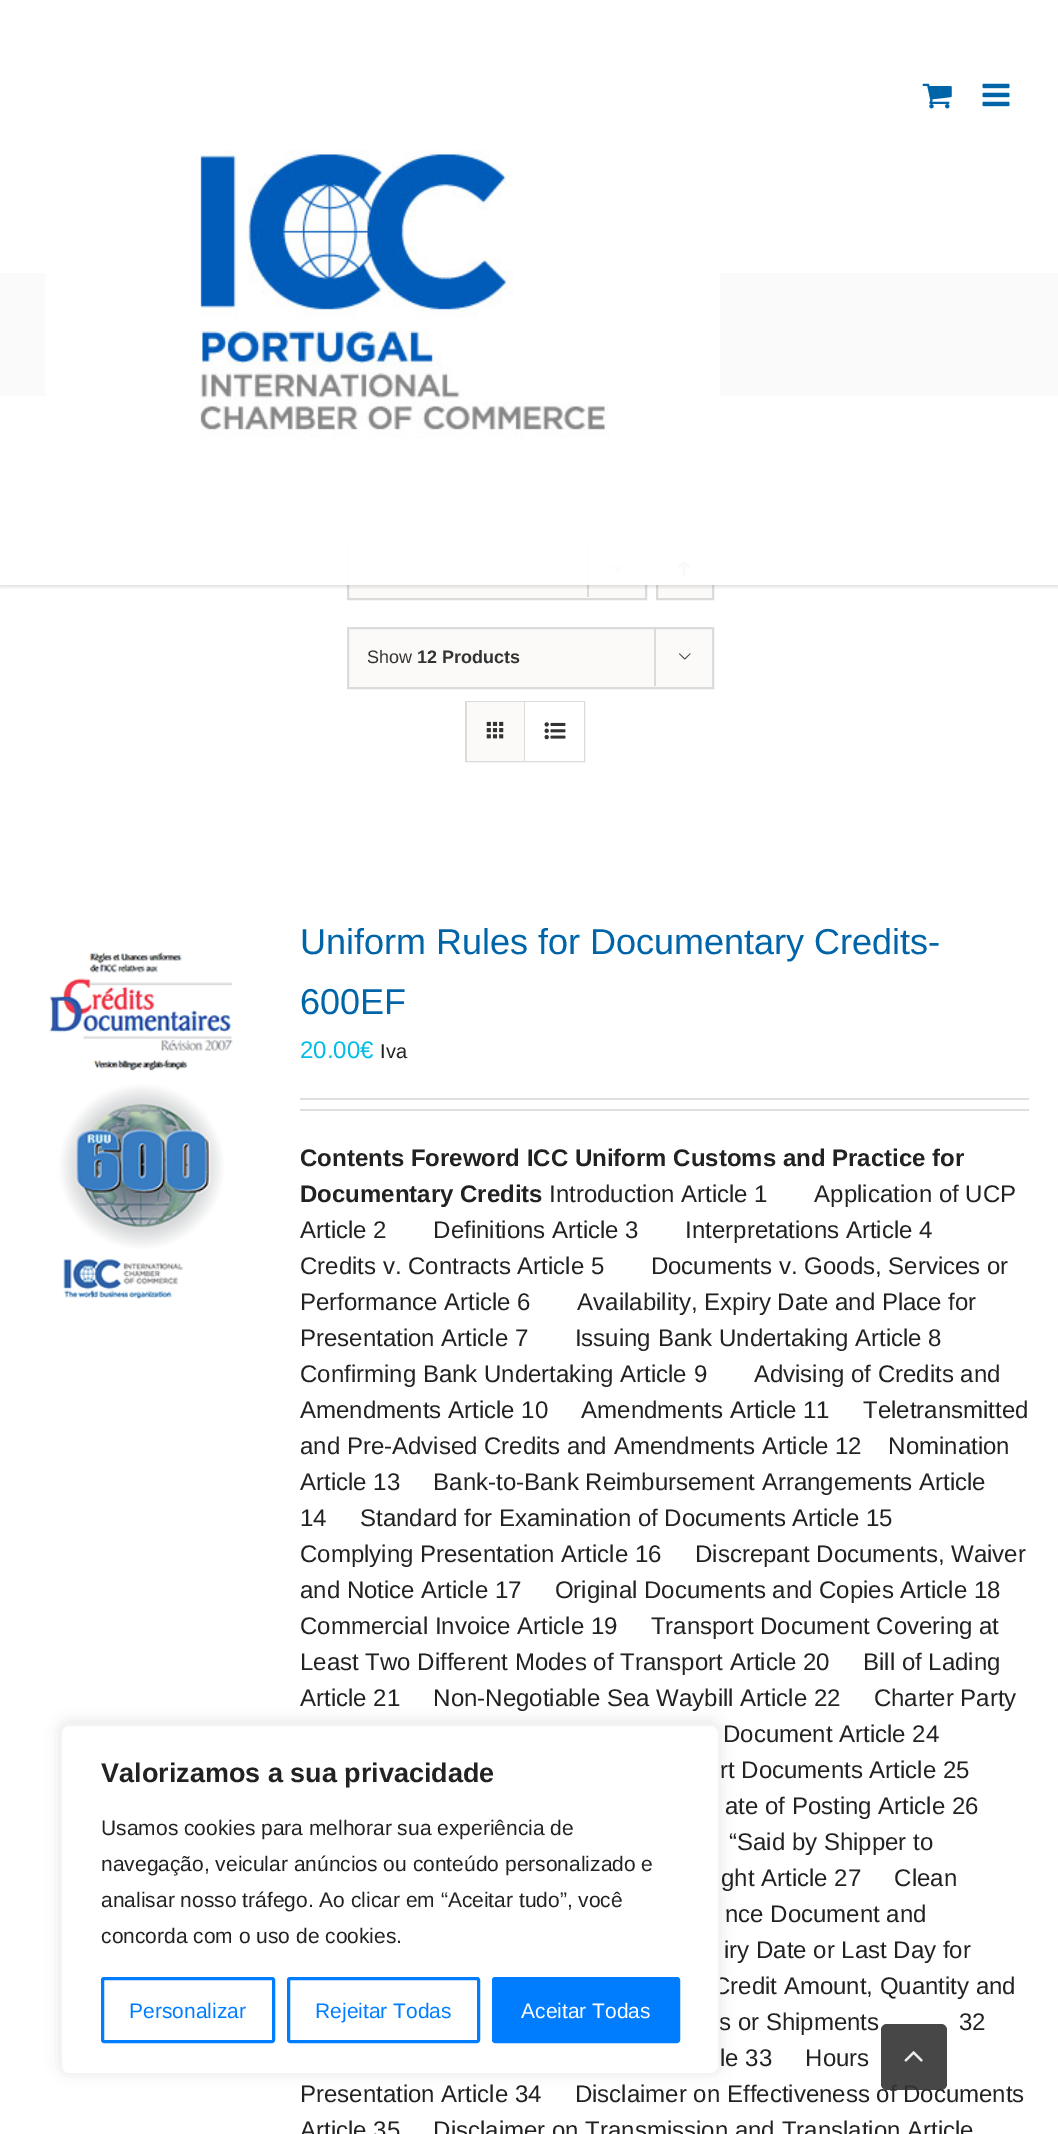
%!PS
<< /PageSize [1058 2134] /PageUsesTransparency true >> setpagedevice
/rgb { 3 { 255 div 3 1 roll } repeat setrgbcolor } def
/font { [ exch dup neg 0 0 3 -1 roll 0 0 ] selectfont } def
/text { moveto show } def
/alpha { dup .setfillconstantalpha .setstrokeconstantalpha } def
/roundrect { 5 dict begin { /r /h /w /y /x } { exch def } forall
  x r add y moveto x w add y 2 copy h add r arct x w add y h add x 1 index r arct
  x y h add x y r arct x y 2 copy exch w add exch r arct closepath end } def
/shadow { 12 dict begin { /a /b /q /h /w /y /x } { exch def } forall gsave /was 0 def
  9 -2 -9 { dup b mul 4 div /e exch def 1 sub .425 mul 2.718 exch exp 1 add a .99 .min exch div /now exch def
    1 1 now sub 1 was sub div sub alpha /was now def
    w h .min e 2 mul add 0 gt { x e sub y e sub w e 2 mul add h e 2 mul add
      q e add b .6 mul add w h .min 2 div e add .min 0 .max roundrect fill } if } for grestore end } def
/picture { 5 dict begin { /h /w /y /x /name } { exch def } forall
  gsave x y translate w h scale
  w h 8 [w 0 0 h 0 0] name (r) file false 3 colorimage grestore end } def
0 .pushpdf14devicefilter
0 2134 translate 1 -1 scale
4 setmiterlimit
255 255 255 rgb
0 0 1058 2134 rectfill
99 101 106 rgb
0 273 1058 123 rectfill
251 250 249 rgb
348 540 moveto 298 0 rlineto 0 59 rlineto -298 0 rlineto closepath gsave fill grestore
219 219 219 rgb
2 setlinewidth
stroke
587 539 2 58 rectfill
(img_04.rgb) 611 564 12 7 picture
251 250 249 rgb
657 540 moveto 56 0 rlineto 0 59 rlineto -56 0 rlineto closepath gsave fill grestore
219 219 219 rgb
stroke
(img_05.rgb) 677 561 14 17 picture
gsave
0 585 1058 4 rectclip
0 0 0 rgb
0 2 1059 585 0 2 0.12 shadow
grestore
0.97 alpha
255 255 255 rgb
0 273 1058 312 rectfill
1 alpha
(img_01.rgb) 922 83 30 26 picture
(img_02.rgb) 982 83 28 24 picture
(img_03.rgb) 45 150 675 288 picture
251 250 249 rgb
348 628 moveto 365 0 rlineto 0 60 rlineto -365 0 rlineto closepath gsave fill grestore
219 219 219 rgb
stroke
654 627 2 59 rectfill
(img_06.rgb) 679 653 12 7 picture
466 702 118 59 rectstroke
251 250 249 rgb
467 702 57 59 rectfill
219 219 219 rgb
524 702 1 59 rectfill
(img_07.rgb) 486 721 18 18 picture
255 255 255 rgb
525 702 59 59 rectfill
(img_08.rgb) 544 722 22 18 picture
(img_09.rgb) 49 952 184 347 picture
224 222 222 rgb
300 1098 729 2 rectfill
300 1109 729 2 rectfill
172 171 171 rgb
60 1722 660 351 9 7.5 0.3 shadow
/LiberationSans-Regular 18 font
51 51 51 rgb
(Show) 367 663 text
/LiberationSans-Bold 18 font
(12 Products) 417 663 text
/LiberationSans-Regular 36 font
0 100 168 rgb
(Uniform Rules for Documentary Credits-) 300 954 text
(600EF) 300 1014 text
/LiberationSans-Regular 24 font
0 188 231 rgb
(20.00€) 300 1058 text
/LiberationSans-Regular 20 font
34 34 34 rgb
(Iva) 380 1058 text
/LiberationSans-Bold 24 font
(Contents Foreword ICC Uniform Customs and Practice for) 300 1166 text
(Documentary Credits) 300 1202 text
/LiberationSans-Regular 24 font
(Introduction Article 1       Application of UCP) 549 1202 text
(Article 2       Definitions Article 3       Interpretations Article 4) 300 1238 text
(Credits v. Contracts Article 5       Documents v. Goods, Services or) 300 1274 text
(Performance Article 6       Availability, Expiry Date and Place for) 300 1310 text
(Presentation Article 7       Issuing Bank Undertaking Article 8) 300 1346 text
(Confirming Bank Undertaking Article 9       Advising of Credits and) 300 1382 text
(Amendments Article 10     Amendments Article 11     Teletransmitted) 300 1418 text
(and Pre-Advised Credits and Amendments Article 12    Nomination) 300 1454 text
(Article 13     Bank-to-Bank Reimbursement Arrangements Article) 300 1490 text
(14     Standard for Examination of Documents Article 15) 300 1526 text
(Complying Presentation Article 16     Discrepant Documents, Waiver) 300 1562 text
(and Notice Article 17     Original Documents and Copies Article 18) 300 1598 text
(Commercial Invoice Article 19     Transport Document Covering at) 300 1634 text
(Least Two Different Modes of Transport Article 20     Bill of Lading) 300 1670 text
(Article 21     Non-Negotiable Sea Waybill Article 22     Charter Party) 300 1706 text
(Document Article 24) 723 1742 text
(rt Documents Article 25) 720 1778 text
(ate of Posting Article 26) 725 1814 text
(“Said by Shipper to) 729 1850 text
(ght Article 27     Clean) 721 1886 text
(nce Document and) 725 1922 text
(iry Date or Last Day for) 724 1958 text
(Credit Amount, Quantity and) 713 1994 text
(s or Shipments) 719 2030 text
(32) 959 2030 text
(le 33     Hours) 720 2066 text
(Presentation Article 34     Disclaimer on Effectiveness of Documents) 300 2102 text
(Article 35     Disclaimer on Transmission and Translation Article) 300 2138 text
255 255 255 rgb
61 1725 658 349 8 roundrect gsave fill grestore
244 244 244 rgb
stroke
/LiberationSans-Bold 27 font
34 34 34 rgb
(Valorizamos a sua privacidade) 101 1782 text
/LiberationSans-Regular 21 font
(Usamos cookies para melhorar sua experiência de) 101 1835 text
(navegação, veicular anúncios ou conteúdo personalizado e) 101 1871 text
(analisar nosso tráfego. Ao clicar em “Aceitar tudo”, você) 101 1907 text
(concorda com o uso de cookies.) 101 1943 text
0 125 255 rgb
3 setlinewidth
102.5 1978.5 171 63 1.5 roundrect stroke
(Personalizar) 129 2018 text
288.5 1978.5 190 63 1.5 roundrect stroke
(Rejeitar Todas) 315 2018 text
493.5 1978.5 185 63 1.5 roundrect gsave fill grestore
stroke
255 255 255 rgb
(Aceitar Todas) 521 2018 text
0.9 alpha
51 51 51 rgb
881 2024 66 66 6 roundrect fill
1 alpha
(img_10.rgb) 904 2051 19 11 picture
.poppdf14devicefilter showpage
